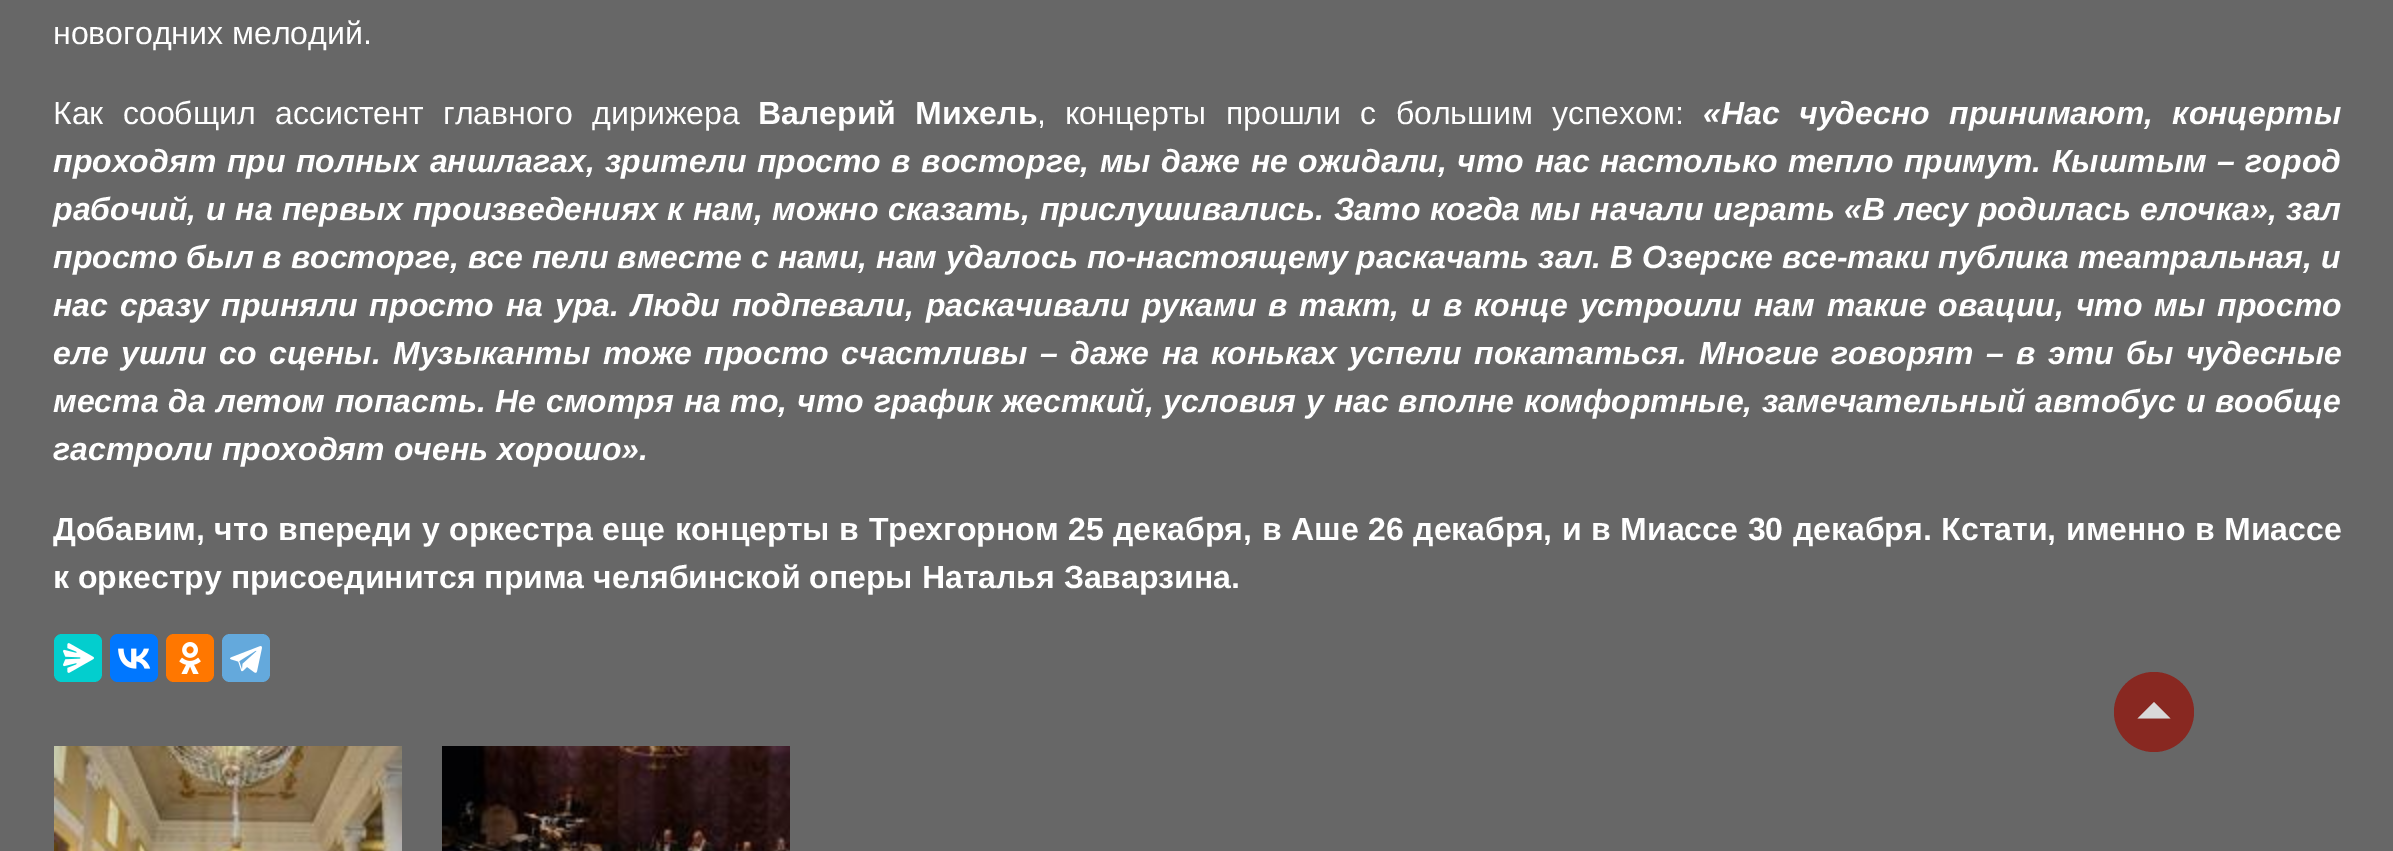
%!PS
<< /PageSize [2393 851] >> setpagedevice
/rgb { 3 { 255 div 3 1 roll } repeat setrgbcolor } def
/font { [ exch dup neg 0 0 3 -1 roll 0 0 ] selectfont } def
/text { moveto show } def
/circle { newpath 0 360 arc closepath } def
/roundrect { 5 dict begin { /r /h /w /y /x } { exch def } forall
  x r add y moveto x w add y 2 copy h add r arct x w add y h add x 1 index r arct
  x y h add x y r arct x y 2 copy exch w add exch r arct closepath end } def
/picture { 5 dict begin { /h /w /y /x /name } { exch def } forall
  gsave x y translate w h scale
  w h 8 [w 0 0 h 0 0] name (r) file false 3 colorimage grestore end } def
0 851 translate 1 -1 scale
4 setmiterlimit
103 103 103 rgb
0 0 2393 851 rectfill
3 206 206 rgb
54 634 48 48 8 roundrect fill
(img_01.rgb) 63 643 31 30 picture
0 119 255 rgb
110 634 48 48 8 roundrect fill
(img_02.rgb) 118 648 33 21 picture
255 119 0 rgb
166 634 48 48 8 roundrect fill
(img_03.rgb) 179 642 22 32 picture
100 169 220 rgb
222 634 48 48 8 roundrect fill
(img_04.rgb) 230 646 32 27 picture
(img_05.rgb) 54 746 348 105 picture
(img_06.rgb) 442 746 348 105 picture
136 40 33 rgb
2154 712 40 circle fill
217 217 217 rgb
2137.5 718.5 moveto 16.5 -16.5 rlineto 16.5 16.5 rlineto closepath fill
/LiberationSans-Regular 32 font
255 255 255 rgb
(новогодних мелодий.) 53 44 text
53 124 moveto 10.5 0 32 (Как сообщил ассистент главного дирижера) widthshow
/LiberationSans-Bold 32 font
758 124 moveto 10.5 0 32 (Валерий Михель) widthshow
/LiberationSans-Regular 32 font
1037 124 moveto 10.5 0 32 (, концерты прошли с большим успехом:) widthshow
/LiberationSans-BoldItalic 32 font
1703 124 moveto 10.5 0 32 («Нас чудесно принимают, концерты) widthshow
53 172 moveto 1.6 0 32 (проходят при полных аншлагах, зрители просто в восторге, мы даже не ожидали, что нас настолько тепло примут. Кыштым – город) widthshow
53 220 moveto 0.75 0 32 (рабочий, и на первых произведениях к нам, можно сказать, прислушивались. Зато когда мы начали играть «В лесу родилась елочка», зал) widthshow
53 268 moveto 0.1 0 32 (просто был в восторге, все пели вместе с нами, нам удалось по-настоящему раскачать зал. В Озерске все-таки публика театральная, и) widthshow
53 316 moveto 3.1 0 32 (нас сразу приняли просто на ура. Люди подпевали, раскачивали руками в такт, и в конце устроили нам такие овации, что мы просто) widthshow
53 364 moveto 3.5 0 32 (еле ушли со сцены. Музыканты тоже просто счастливы – даже на коньках успели покататься. Многие говорят – в эти бы чудесные) widthshow
53 412 moveto 0.9 0 32 (места да летом попасть. Не смотря на то, что график жесткий, условия у нас вполне комфортные, замечательный автобус и вообще) widthshow
(гастроли проходят очень хорошо».) 53 460 text
/LiberationSans-Bold 32 font
53 540 moveto 0.75 0 32 (Добавим, что впереди у оркестра еще концерты в Трехгорном 25 декабря, в Аше 26 декабря, и в Миассе 30 декабря. Кстати, именно в Миассе) widthshow
(к оркестру присоединится прима челябинской оперы Наталья Заварзина.) 53 588 text
showpage
